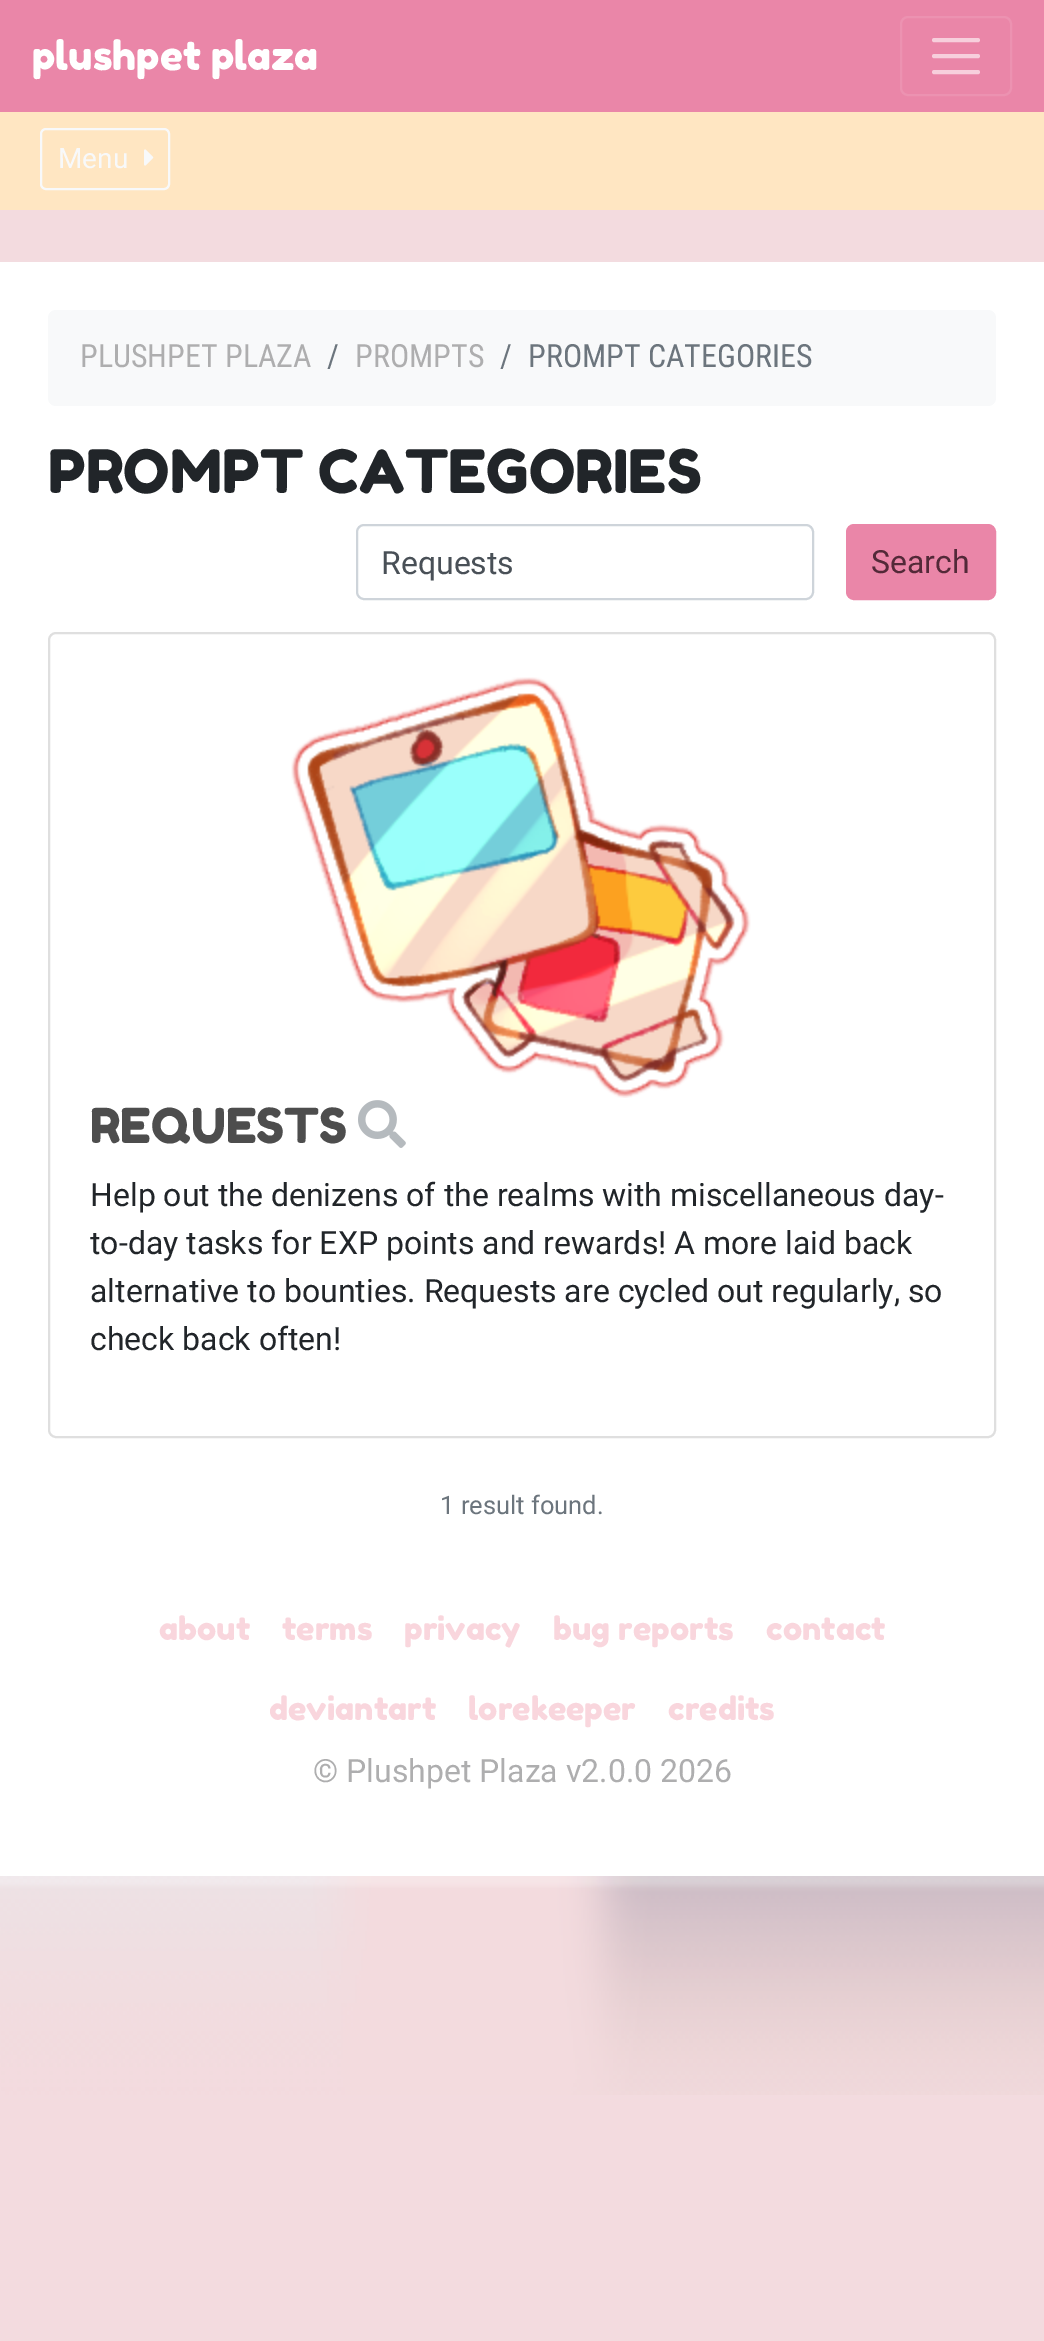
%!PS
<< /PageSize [1044 2341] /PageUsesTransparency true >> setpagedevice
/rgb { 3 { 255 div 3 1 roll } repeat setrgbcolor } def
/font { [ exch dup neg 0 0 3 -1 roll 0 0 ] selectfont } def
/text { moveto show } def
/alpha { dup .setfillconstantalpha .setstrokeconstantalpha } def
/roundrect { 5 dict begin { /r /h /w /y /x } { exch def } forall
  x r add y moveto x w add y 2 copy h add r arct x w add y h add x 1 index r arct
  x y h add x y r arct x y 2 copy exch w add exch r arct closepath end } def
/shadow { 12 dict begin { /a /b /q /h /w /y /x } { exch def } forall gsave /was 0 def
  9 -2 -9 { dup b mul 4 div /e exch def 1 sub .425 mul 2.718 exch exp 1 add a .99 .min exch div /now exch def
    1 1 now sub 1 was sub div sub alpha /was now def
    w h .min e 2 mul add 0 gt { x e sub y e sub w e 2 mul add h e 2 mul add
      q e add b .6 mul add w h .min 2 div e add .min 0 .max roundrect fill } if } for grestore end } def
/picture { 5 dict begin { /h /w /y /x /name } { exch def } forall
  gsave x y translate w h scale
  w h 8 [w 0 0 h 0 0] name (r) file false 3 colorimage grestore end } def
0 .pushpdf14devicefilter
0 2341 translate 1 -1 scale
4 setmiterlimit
243 219 223 rgb
0 0 1044 2341 rectfill
(img_01.rgb) 0 1876 1044 219 picture
234 134 168 rgb
0 0 1044 112 rectfill
236 146 177 rgb
2 setlinewidth
901 17 110 78 7 roundrect stroke
247 207 220 rgb
4 setlinewidth
1 setlinecap
934 40 moveto 44 0 rlineto 934 56 moveto 44 0 rlineto 934 72 moveto 44 0 rlineto stroke
255 230 194 rgb
0 112 1044 98 rectfill
248 249 250 rgb
2 setlinewidth
0 setlinecap
41 129 128 60 5 roundrect stroke
(img_02.rgb) 144 149 10 17 picture
255 255 255 rgb
-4 264 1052 1622 0 3 0.3 shadow
0 262 1044 1614 rectfill
248 249 250 rgb
48 310 948 96 8 roundrect fill
206 212 218 rgb
357 525 456 74 7 roundrect stroke
234 134 168 rgb
847 525 148 74 7 roundrect gsave fill grestore
stroke
223 223 223 rgb
49 633 946 804 7 roundrect stroke
(img_03.rgb) 291 677 460 421 picture
(img_04.rgb) 358 1100 48 48 picture
/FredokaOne-Regular 40 font
255 255 255 rgb
(plushpet plaza) 32 70 text
/Roboto-Regular 28 font
248 249 250 rgb
(Menu) 58 168 text
/RobotoCondensed-Regular 32 font
174 174 175 rgb
(PLUSHPET PLAZA) 80 367 text
108 117 125 rgb
(/) 327 367 text
174 174 175 rgb
(PROMPTS) 355 367 text
108 117 125 rgb
(/) 500 367 text
(PROMPT CATEGORIES) 528 367 text
/FredokaOne-Regular 59.75 font
33 37 41 rgb
(PROMPT CATEGORIES) 48 493 text
/Roboto-Regular 32 font
73 80 87 rgb
(Requests) 381 574 text
83 41 56 rgb
(Search) 871 573 text
/FredokaOne-Regular 48 font
77 77 77 rgb
(REQUESTS) 90 1143 text
/Roboto-Regular 32 font
33 37 41 rgb
(Help out the denizens of the realms with miscellaneous day-) 90 1206 text
(to-day tasks for EXP points and rewards! A more laid back) 90 1254 text
(alternative to bounties. Requests are cycled out regularly, so) 90 1302 text
(check back often!) 90 1350 text
/Roboto-Regular 25.5 font
108 117 125 rgb
(1 result found.) 440 1514 text
/FredokaOne-Regular 32 font
249 214 221 rgb
(about) 159 1640 text
(terms) 282 1640 text
(privacy) 404 1640 text
(bug reports) 553 1640 text
(contact) 766 1640 text
(deviantart) 269 1720 text
(lorekeeper) 468 1720 text
(credits) 668 1720 text
/Roboto-Regular 32 font
174 174 175 rgb
(© Plushpet Plaza v2.0.0 2026) 313 1782 text
.poppdf14devicefilter showpage
